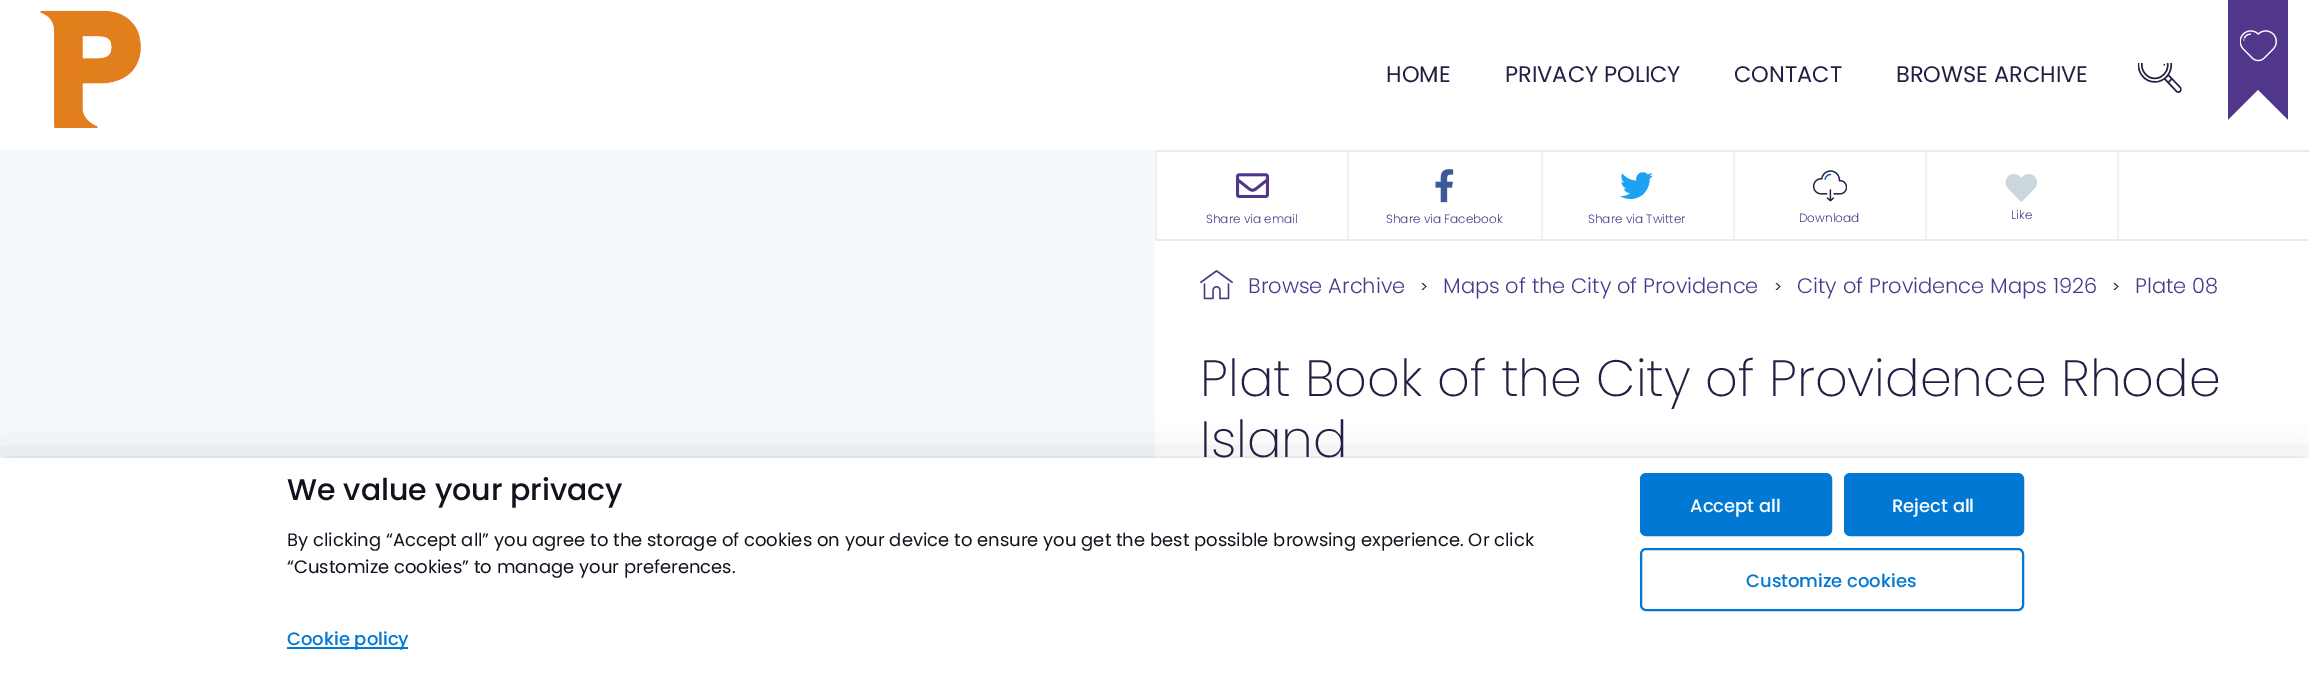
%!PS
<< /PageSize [2309 676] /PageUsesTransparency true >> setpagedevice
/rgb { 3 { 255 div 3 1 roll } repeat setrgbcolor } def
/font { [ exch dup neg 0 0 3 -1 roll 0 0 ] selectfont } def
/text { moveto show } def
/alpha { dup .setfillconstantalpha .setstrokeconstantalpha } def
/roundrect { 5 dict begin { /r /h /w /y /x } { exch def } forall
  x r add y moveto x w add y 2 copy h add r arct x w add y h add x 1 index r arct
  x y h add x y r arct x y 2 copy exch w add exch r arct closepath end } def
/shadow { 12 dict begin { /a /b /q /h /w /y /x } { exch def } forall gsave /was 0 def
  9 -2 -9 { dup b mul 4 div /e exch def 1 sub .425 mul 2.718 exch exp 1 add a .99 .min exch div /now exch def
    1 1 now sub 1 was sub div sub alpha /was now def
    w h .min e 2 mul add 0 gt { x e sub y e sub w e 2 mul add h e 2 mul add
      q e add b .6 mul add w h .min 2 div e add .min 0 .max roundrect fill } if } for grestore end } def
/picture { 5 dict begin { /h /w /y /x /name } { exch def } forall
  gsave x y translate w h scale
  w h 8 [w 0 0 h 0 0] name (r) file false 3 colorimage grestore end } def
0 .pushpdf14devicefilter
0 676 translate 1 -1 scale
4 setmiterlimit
255 255 255 rgb
0 0 2309 676 rectfill
(img_01.rgb) 40 10 101 118 picture
(img_02.rgb) 2138 63 44 30 picture
80 55 140 rgb
2228 0 60 120 rectfill
(img_03.rgb) 2240 30 37 32 picture
255 255 255 rgb
2288 120 moveto -60 0 rlineto 30 -30 rlineto closepath fill
245 249 252 rgb
0 150 1155 308 rectfill
230 236 245 rgb
1155 150 1154 2 rectfill
1155 239 1154 2 rectfill
237 241 244 rgb
1155 152 2 87 rectfill
(img_04.rgb) 1236 173 33 25 picture
1347 152 2 87 rectfill
(img_05.rgb) 1435 169 19 34 picture
1541 152 2 87 rectfill
(img_06.rgb) 1620 172 33 27 picture
1733 152 2 87 rectfill
(img_07.rgb) 1812 170 35 32 picture
2117 152 2 87 rectfill
1925 152 2 87 rectfill
(img_08.rgb) 2005 174 32 28 picture
(img_09.rgb) 1200 270 33 30 picture
0 0 2 rgb
0 473 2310 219 0 22.5 0.3 shadow
255 255 255 rgb
0 458 2309 218 rectfill
0 120 212 rgb
1641 474 190 61 5 roundrect gsave fill grestore
2 setlinewidth
stroke
1845 474 178 61 5 roundrect gsave fill grestore
stroke
1641 549 382 61 5 roundrect stroke
287 647 121 2 rectfill
/Poppins-Regular 22.5 font
34 31 68 rgb
(HOME) 1386 82 text
(PRIVACY POLICY) 1505 82 text
(CONTACT) 1734 82 text
(BROWSE ARCHIVE) 1896 82 text
/Poppins-Light 12 font
80 55 140 rgb
(Share via email) 1206 223 text
(Share via Facebook) 1386 223 text
(Share via Twitter) 1588 223 text
(Download) 1799 222 text
(Like) 2011 219 text
/Poppins-Light 21 font
(Browse Archive) 1248 293 text
/Poppins-Regular 15 font
34 31 68 rgb
(>) 1420 292 text
/Poppins-Light 21 font
80 55 140 rgb
(Maps of the City of Providence) 1443 293 text
/Poppins-Regular 15 font
34 31 68 rgb
(>) 1774 292 text
/Poppins-Light 21 font
80 55 140 rgb
(City of Providence Maps 1926) 1797 293 text
/Poppins-Regular 15 font
34 31 68 rgb
(>) 2112 292 text
/Poppins-Light 21 font
80 55 140 rgb
(Plate 08) 2135 293 text
/Poppins-ExtraLight 51 font
34 31 68 rgb
(Plat Book of the City of Providence Rhode) 1200 396 text
(Island) 1200 457 text
/Poppins-Medium 30 font
16 18 29 rgb
(We value your privacy) 287 500 text
/Poppins-Regular 18 font
(By clicking “Accept all” you agree to the storage of cookies on your device to ensure you get the best possible browsing experience. Or click) 287 546 text
(“Customize cookies” to manage your preferences.) 287 573 text
/Poppins-Medium 18 font
255 255 255 rgb
(Accept all) 1690 512 text
(Reject all) 1892 512 text
0 120 212 rgb
(Customize cookies) 1746 587 text
(Cookie policy) 287 645 text
.poppdf14devicefilter showpage
